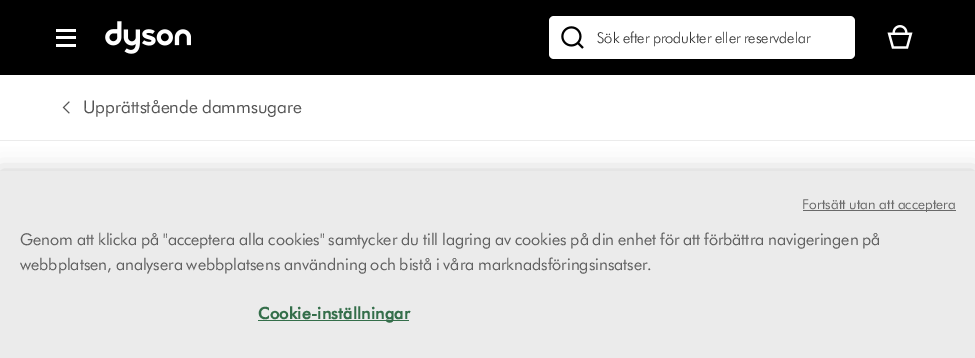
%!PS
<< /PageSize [975 358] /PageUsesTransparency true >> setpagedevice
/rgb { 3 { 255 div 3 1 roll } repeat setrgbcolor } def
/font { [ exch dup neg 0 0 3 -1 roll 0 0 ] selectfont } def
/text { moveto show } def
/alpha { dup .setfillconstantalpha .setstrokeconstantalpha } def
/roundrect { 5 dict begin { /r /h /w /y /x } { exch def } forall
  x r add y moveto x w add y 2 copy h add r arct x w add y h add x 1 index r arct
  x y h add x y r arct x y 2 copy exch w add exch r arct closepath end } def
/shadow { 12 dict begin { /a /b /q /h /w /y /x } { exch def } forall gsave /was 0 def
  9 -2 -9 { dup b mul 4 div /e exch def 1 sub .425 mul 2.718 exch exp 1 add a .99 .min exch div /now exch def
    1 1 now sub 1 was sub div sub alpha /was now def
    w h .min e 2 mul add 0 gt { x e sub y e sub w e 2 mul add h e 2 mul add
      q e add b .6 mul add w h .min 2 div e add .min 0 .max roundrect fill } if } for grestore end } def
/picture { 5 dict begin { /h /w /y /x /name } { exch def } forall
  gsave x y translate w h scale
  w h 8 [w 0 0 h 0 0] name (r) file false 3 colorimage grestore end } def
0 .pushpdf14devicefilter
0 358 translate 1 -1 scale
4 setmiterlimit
255 255 255 rgb
0 0 975 358 rectfill
0 0 0 rgb
0 0 975 75 rectfill
255 255 255 rgb
56 36 20 3 rectfill
56 29 20 3 rectfill
56 44 20 3 rectfill
(img_01.rgb) 105 21 86 33 picture
549 16 306 43 5 roundrect fill
(img_02.rgb) 561 26 23 23 picture
(img_03.rgb) 887 25 26 24 picture
235 235 235 rgb
0 140 975 1 rectfill
(img_04.rgb) 62 101 8 13 picture
0 0 0 rgb
0 171 975 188 0 11 0.2 shadow
235 235 235 rgb
0 171 975 187 rectfill
105 105 105 rgb
803 210 153 1 rectfill
52 110 74 rgb
258 320 151 1 rectfill
/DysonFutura-Light 15 font
51 51 51 rgb
(Sök efter produkter eller reservdelar) 597 43 text
/DysonFutura-Regular 17.5 font
85 85 85 rgb
(Upprättstående dammsugare) 83 113 text
/DysonFutura-Regular 13.75 font
105 105 105 rgb
802 209 moveto 0.15 0 (Fortsätt utan att acceptera) ashow
/DysonFutura-Regular 16.25 font
96 96 96 rgb
(Genom att klicka på "acceptera alla cookies" samtycker du till lagring av cookies på din enhet för att förbättra navigeringen på) 20 245 text
(webbplatsen, analysera webbplatsens användning och bistå i våra marknadsföringsinsatser.) 20 270 text
/DysonFutura-Bold 16.25 font
52 110 74 rgb
258 319 moveto 0.2 0 (Cookie-inställningar) ashow
.poppdf14devicefilter showpage
